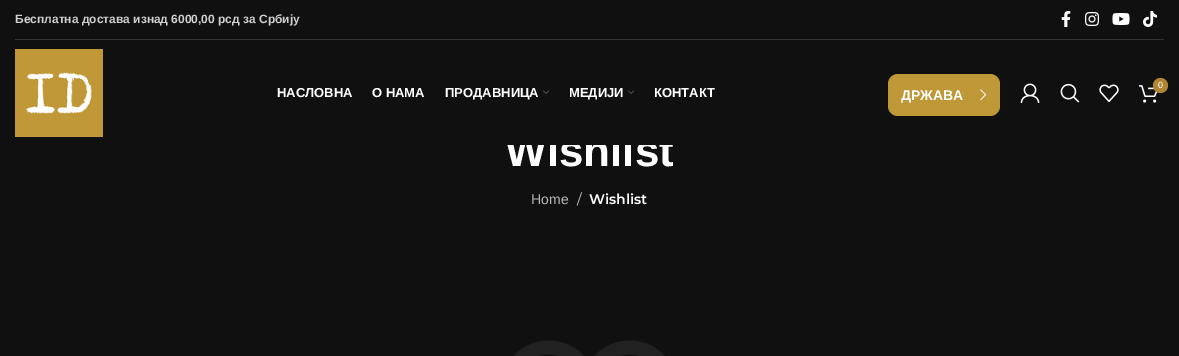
%!PS
<< /PageSize [1179 356] >> setpagedevice
/rgb { 3 { 255 div 3 1 roll } repeat setrgbcolor } def
/font { [ exch dup neg 0 0 3 -1 roll 0 0 ] selectfont } def
/text { moveto show } def
/circle { newpath 0 360 arc closepath } def
/roundrect { 5 dict begin { /r /h /w /y /x } { exch def } forall
  x r add y moveto x w add y 2 copy h add r arct x w add y h add x 1 index r arct
  x y h add x y r arct x y 2 copy exch w add exch r arct closepath end } def
/picture { 5 dict begin { /h /w /y /x /name } { exch def } forall
  gsave x y translate w h scale
  w h 8 [w 0 0 h 0 0] name (r) file false 3 colorimage grestore end } def
0 356 translate 1 -1 scale
4 setmiterlimit
16 16 16 rgb
0 0 1179 356 rectfill
52 52 52 rgb
15 39 1149 1 rectfill
(img_01.rgb) 1061 11 10 16 picture
(img_02.rgb) 1085 12 14 14 picture
(img_03.rgb) 1112 13 18 12 picture
(img_04.rgb) 1143 11 14 16 picture
(img_05.rgb) 15 49 88 88 picture
(img_06.rgb) 1020 83 20 20 picture
(img_07.rgb) 1060 83 20 20 picture
(img_08.rgb) 1099 84 20 18 picture
(img_09.rgb) 1139 85 19 18 picture
176 134 50 rgb
1160.5 85.5 7.5 circle fill
(img_10.rgb) 543 90 6 4 picture
(img_10.rgb) 628 90 6 4 picture
191 152 56 rgb
888 74 112 42 10 roundrect fill
(img_11.rgb) 980 89 7 12 picture
(img_12.rgb) 514 340 151 16 picture
/LiberationSans-Bold 12 font
207 207 207 rgb
(Бесплатна достава изнад 6000,00 рсд за Србију) 15 23 text
/LiberationSans-Regular 9 font
255 255 255 rgb
(0) 1158 88 text
/LiberationSans-Bold 13 font
(НАСЛОВНА) 277 97 text
(О НАМА) 372 97 text
(ПРОДАВНИЦА) 445 97 text
(МЕДИЈИ) 569 97 text
(КОНТАКТ) 654 97 text
/LiberationSans-Bold 14 font
(ДРЖАВА) 901 100 text
/LiberationSans-Bold 44 font
(Wishlist) 505 166 text
16 16 16 rgb
505 134 169 11 rectfill
/LiberationSans-Regular 14 font
183 183 183 rgb
(Home) 531 204 text
/Montserrat-Regular 14 font
207 207 207 rgb
(/) 577 204 text
/Montserrat-SemiBold 14 font
255 255 255 rgb
(Wishlist) 589 204 text
showpage
